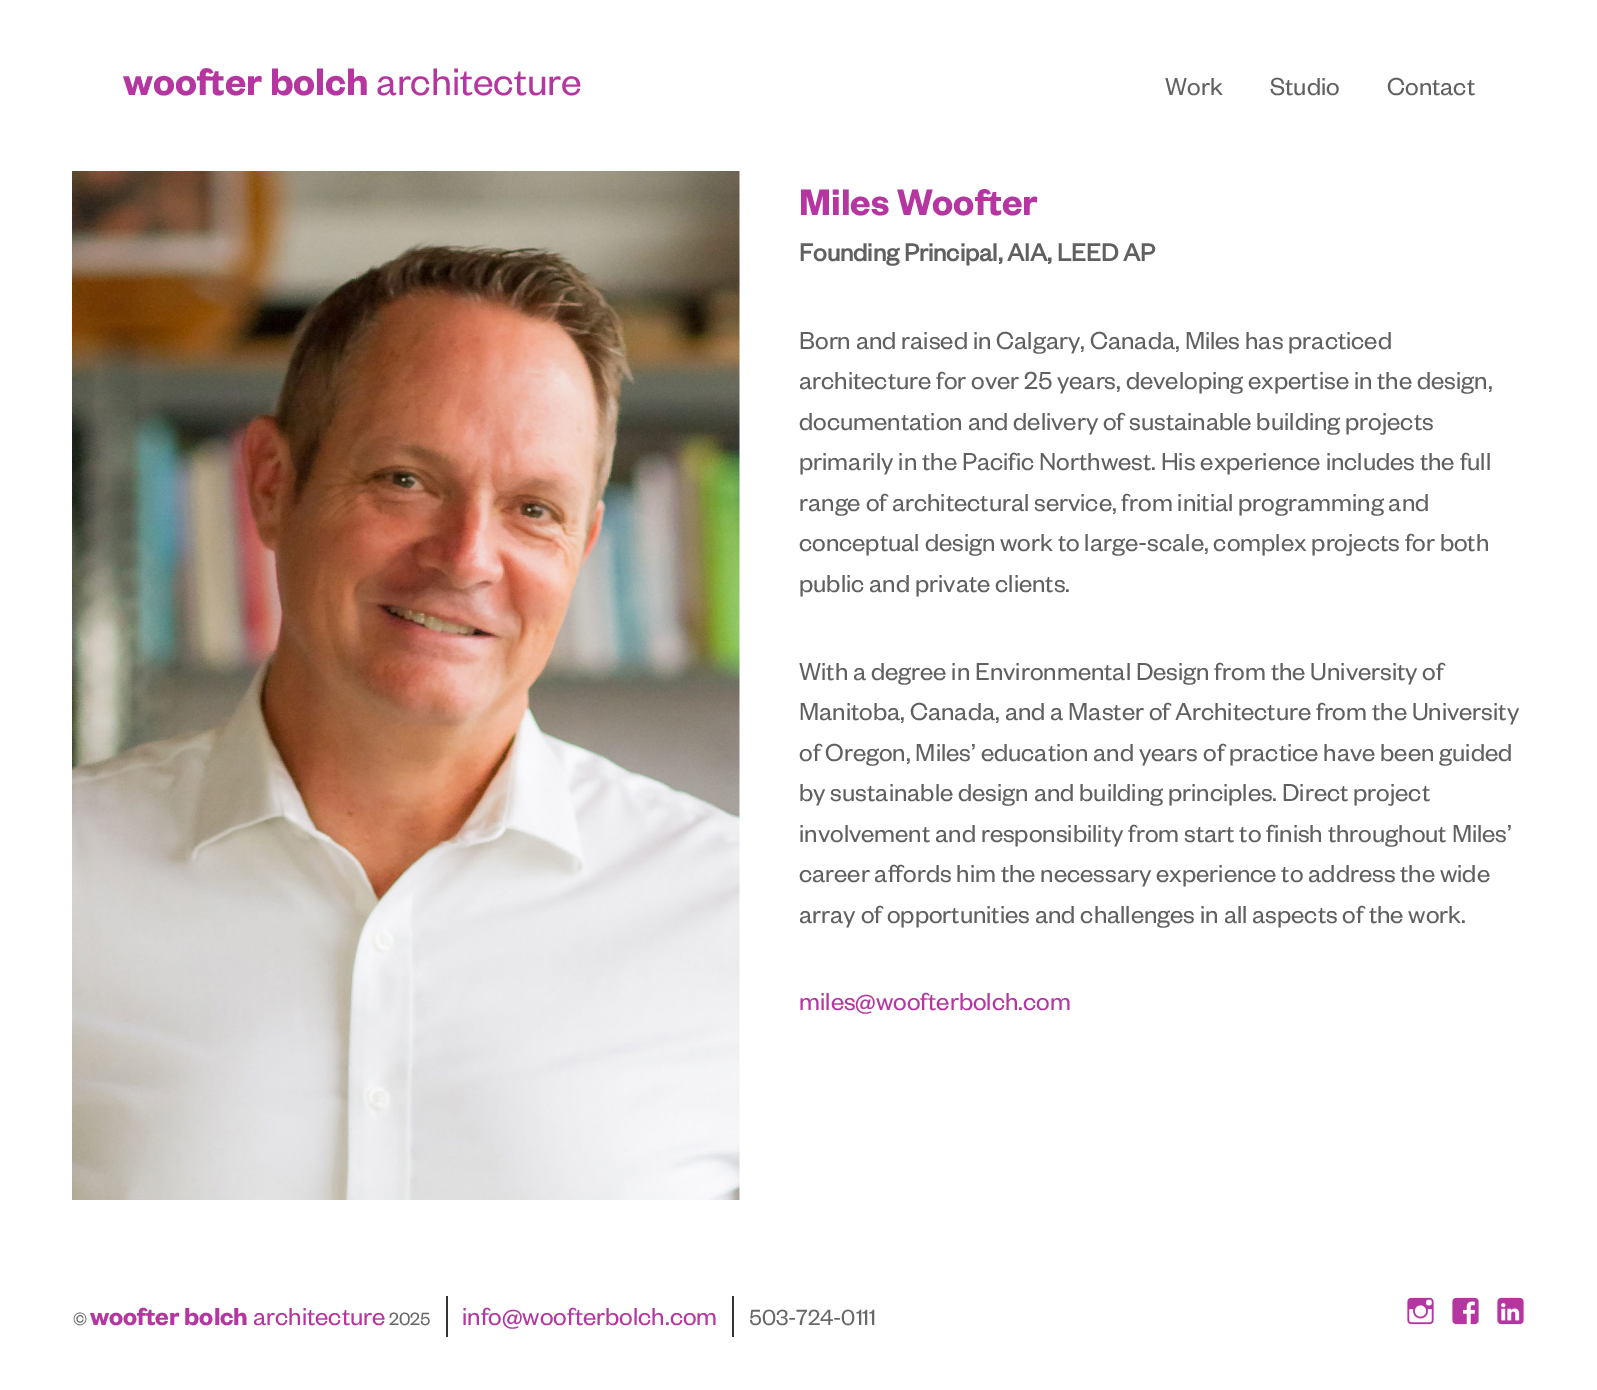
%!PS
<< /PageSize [1597 1390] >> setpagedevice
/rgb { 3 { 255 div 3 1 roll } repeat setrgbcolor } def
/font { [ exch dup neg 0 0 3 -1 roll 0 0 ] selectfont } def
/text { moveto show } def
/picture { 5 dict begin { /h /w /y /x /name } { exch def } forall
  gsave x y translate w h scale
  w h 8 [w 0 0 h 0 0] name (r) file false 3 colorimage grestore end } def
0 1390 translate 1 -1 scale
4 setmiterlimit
255 255 255 rgb
0 0 1597 1390 rectfill
(img_01.rgb) 72 171 668 1029 picture
51 51 51 rgb
446 1296 2 41 rectfill
732 1296 2 41 rectfill
(img_02.rgb) 1407 1297 27 28 picture
(img_03.rgb) 1452 1297 27 28 picture
(img_04.rgb) 1497 1297 27 28 picture
/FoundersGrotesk-SemiBold 42 font
182 54 161 rgb
(woofter bolch) 123 95 text
/FoundersGrotesk-Regular 42 font
(architecture) 376 95 text
/FoundersGrotesk-Regular 27 font
96 96 96 rgb
(Work) 1165 95 text
(Studio) 1270 95 text
(Contact) 1387 95 text
/FoundersGrotesk-SemiBold 40.5 font
182 54 161 rgb
(Miles Woofter) 799 215 text
/FoundersGrotesk-Bold 27 font
96 96 96 rgb
(Founding Principal, AIA, LEED AP) 799 261 text
/FoundersGrotesk-Regular 27 font
(Born and raised in Calgary, Canada, Miles has practiced) 799 349 text
(architecture for over 25 years, developing expertise in the design,) 799 389 text
(documentation and delivery of sustainable building projects) 799 430 text
(primarily in the Pacific Northwest. His experience includes the full) 799 470 text
(range of architectural service, from initial programming and) 799 511 text
(conceptual design work to large-scale, complex projects for both) 799 551 text
(public and private clients.) 799 592 text
(With a degree in Environmental Design from the University of) 799 680 text
(Manitoba, Canada, and a Master of Architecture from the University) 799 720 text
(of Oregon, Miles’ education and years of practice have been guided) 799 761 text
(by sustainable design and building principles. Direct project) 799 801 text
(involvement and responsibility from start to finish throughout Miles’) 799 842 text
(career affords him the necessary experience to address the wide) 799 882 text
(array of opportunities and challenges in all aspects of the work.) 799 923 text
182 54 161 rgb
(miles@woofterbolch.com) 799 1010 text
/FoundersGrotesk-Regular 19.5 font
104 104 104 rgb
(©) 73 1325 text
/FoundersGrotesk-SemiBold 27 font
182 54 161 rgb
(woofter bolch) 90 1325 text
/FoundersGrotesk-Regular 27 font
(architecture) 253 1325 text
/FoundersGrotesk-Regular 19.5 font
104 104 104 rgb
(2025) 389 1325 text
/FoundersGrotesk-Regular 27 font
182 54 161 rgb
(info@woofterbolch.com) 462 1325 text
/FoundersGrotesk-Regular 24 font
104 104 104 rgb
(503-724-0111) 749 1325 text
showpage
